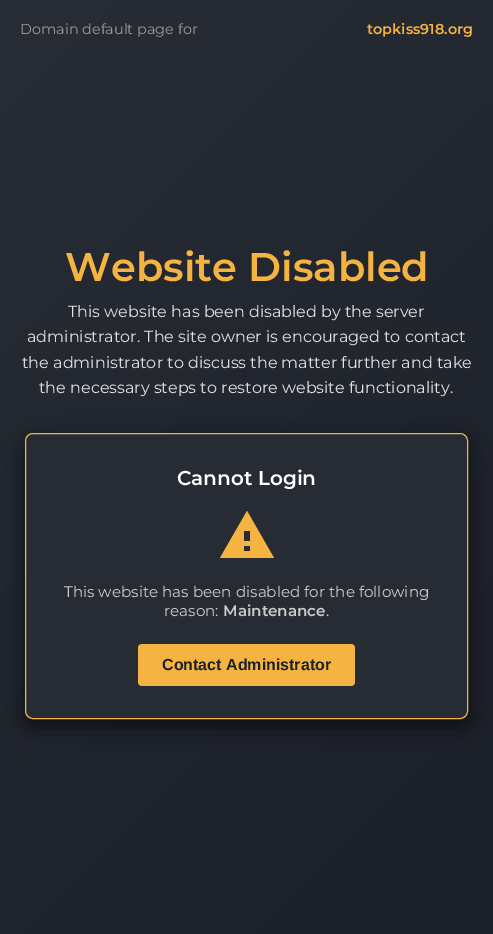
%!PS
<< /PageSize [493 934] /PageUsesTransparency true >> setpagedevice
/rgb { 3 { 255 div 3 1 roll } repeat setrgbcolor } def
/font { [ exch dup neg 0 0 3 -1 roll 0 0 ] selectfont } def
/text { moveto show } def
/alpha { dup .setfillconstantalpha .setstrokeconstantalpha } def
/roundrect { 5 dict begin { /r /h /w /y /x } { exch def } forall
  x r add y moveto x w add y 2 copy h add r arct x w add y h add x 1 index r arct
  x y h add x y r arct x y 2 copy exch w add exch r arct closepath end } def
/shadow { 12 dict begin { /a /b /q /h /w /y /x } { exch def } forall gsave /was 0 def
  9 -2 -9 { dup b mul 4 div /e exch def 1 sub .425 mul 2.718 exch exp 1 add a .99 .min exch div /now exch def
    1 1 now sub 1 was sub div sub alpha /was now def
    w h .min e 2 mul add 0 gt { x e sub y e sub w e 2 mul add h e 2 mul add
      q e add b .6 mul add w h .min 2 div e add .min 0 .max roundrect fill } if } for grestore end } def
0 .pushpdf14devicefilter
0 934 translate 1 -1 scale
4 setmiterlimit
255 255 255 rgb
0 0 493 934 rectfill
gsave 0 0 moveto 493 0 rlineto 0 934 rlineto -493 0 rlineto closepath clip newpath
<< /ShadingType 2 /ColorSpace /DeviceRGB /Coords [-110 110 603 824] /Extend [true true] /Function << /FunctionType 2 /Domain [0 1] /C0 [0.157 0.173 0.204] /C1 [0.11 0.125 0.157] /N 1 >> >> shfill grestore
gsave
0 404 moveto 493 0 rlineto 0 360 rlineto -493 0 rlineto closepath 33 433 moveto 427 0 rlineto 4.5 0 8 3.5 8 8 rcurveto 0 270 rlineto 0 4.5 -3.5 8 -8 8 rcurveto -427 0 rlineto -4.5 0 -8 -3.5 -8 -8 rcurveto 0 -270 rlineto 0 -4.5 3.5 -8 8 -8 rcurveto closepath eoclip newpath
0 0 0 rgb
25 441 443 286 8 12 0.6 shadow
grestore
0.85 alpha
40 44 52 rgb
25.5 433.5 442 285 7.5 roundrect fill
1 alpha
245 179 66 rgb
25.5 433.5 442 285 7.5 roundrect stroke
220 558 moveto 54 0 rlineto -27 -47 rlineto closepath 250 551 moveto -6 0 rlineto 0 -5 rlineto 6 0 rlineto closepath 250 541 moveto -6 0 rlineto 0 -10 rlineto 6 0 rlineto closepath fill
138 644 217 42 4 roundrect fill
/Montserrat-Regular 14.4 font
154 154 154 rgb
(Domain default page for) 20 34 text
/Montserrat-SemiBold 14.4 font
245 179 66 rgb
(topkiss918.org) 367 34 text
/Montserrat-SemiBold 40 font
(Website Disabled) 65 281 text
/Montserrat-Regular 16 font
224 224 224 rgb
(This website has been disabled by the server) 68 317 text
(administrator. The site owner is encouraged to contact) 27 342 text
(the administrator to discuss the matter further and take) 22 368 text
(the necessary steps to restore website functionality.) 39 393 text
/Montserrat-SemiBold 20 font
255 255 255 rgb
(Cannot Login) 177 485 text
/Montserrat-Regular 15.2 font
204 204 204 rgb
(This website has been disabled for the following) 64 597 text
(reason:) 164 616 text
/Montserrat-SemiBold 15.2 font
(Maintenance) 223 616 text
/Montserrat-Regular 15.2 font
(.) 326 616 text
/LiberationSans-Bold 16 font
28 32 40 rgb
(Contact Administrator) 162 670 text
.poppdf14devicefilter showpage
